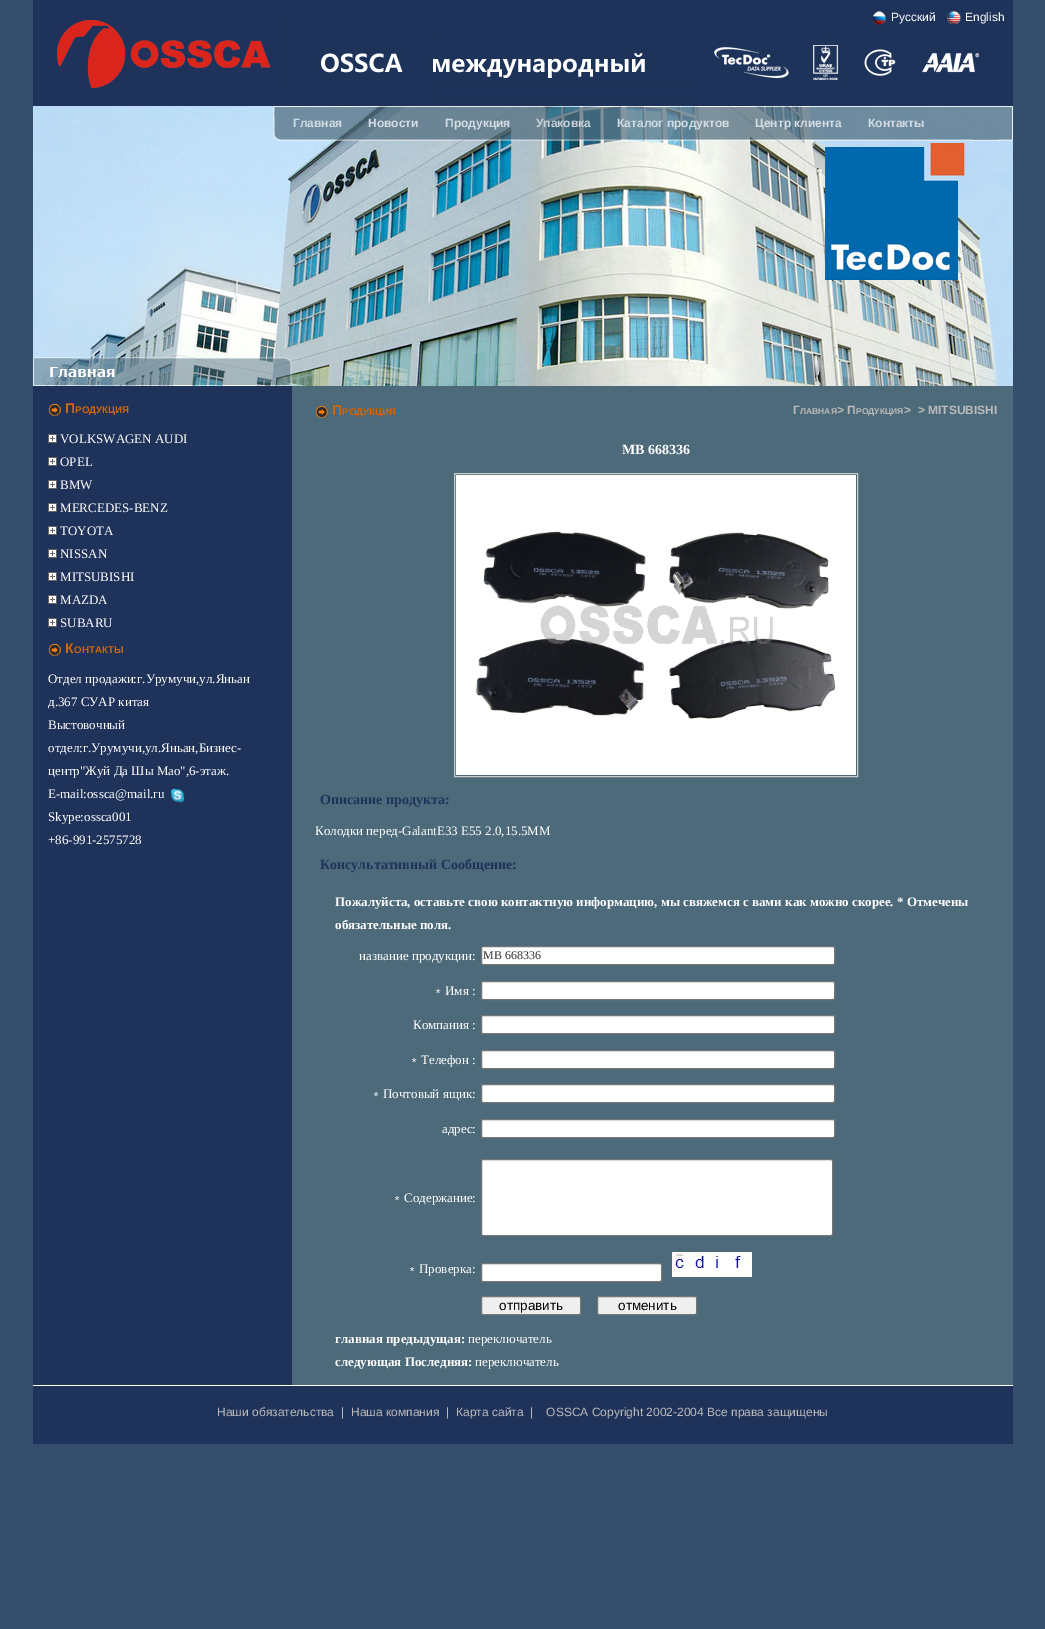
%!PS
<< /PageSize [1045 1629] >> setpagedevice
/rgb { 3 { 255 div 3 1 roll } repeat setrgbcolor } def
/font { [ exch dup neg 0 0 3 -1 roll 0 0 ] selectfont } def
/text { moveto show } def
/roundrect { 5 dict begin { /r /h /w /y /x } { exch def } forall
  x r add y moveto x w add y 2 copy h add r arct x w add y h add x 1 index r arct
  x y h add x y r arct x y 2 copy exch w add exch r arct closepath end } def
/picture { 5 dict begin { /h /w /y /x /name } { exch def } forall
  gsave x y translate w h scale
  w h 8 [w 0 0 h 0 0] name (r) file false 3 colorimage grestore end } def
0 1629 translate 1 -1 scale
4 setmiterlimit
53 78 109 rgb
0 0 1045 1629 rectfill
29 51 90 rgb
33 0 980 106 rectfill
(img_01.rgb) 51 16 928 90 picture
(img_02.rgb) 873 11 13 14 picture
(img_03.rgb) 947 11 14 13 picture
(img_04.rgb) 33 106 980 280 picture
(img_05.rgb) 273 106 740 35 picture
(img_06.rgb) 33 357 259 29 picture
(img_07.rgb) 33 386 980 999 picture
(img_08.rgb) 48 403 14 13 picture
(img_09.rgb) 48 434 9 9 picture
(img_09.rgb) 48 457 9 9 picture
(img_09.rgb) 48 480 9 9 picture
(img_09.rgb) 48 503 9 9 picture
(img_09.rgb) 48 526 9 9 picture
(img_09.rgb) 48 549 9 9 picture
(img_09.rgb) 48 572 9 9 picture
(img_09.rgb) 48 595 9 9 picture
(img_09.rgb) 48 618 9 9 picture
(img_08.rgb) 48 643 14 13 picture
(img_10.rgb) 170 788 15 15 picture
(img_11.rgb) 315 405 13 13 picture
204 204 204 rgb
454.5 473.5 403 303 rectstroke
(img_12.rgb) 456 475 400 300 picture
255 255 255 rgb
481.5 946.5 353 18 1.5 roundrect gsave fill grestore
118 118 118 rgb
stroke
255 255 255 rgb
481.5 981.5 353 18 1.5 roundrect gsave fill grestore
118 118 118 rgb
stroke
255 255 255 rgb
481.5 1015.5 353 18 1.5 roundrect gsave fill grestore
118 118 118 rgb
stroke
255 255 255 rgb
481.5 1050.5 353 18 1.5 roundrect gsave fill grestore
118 118 118 rgb
stroke
255 255 255 rgb
481.5 1084.5 353 18 1.5 roundrect gsave fill grestore
118 118 118 rgb
stroke
255 255 255 rgb
481.5 1119.5 353 18 1.5 roundrect gsave fill grestore
118 118 118 rgb
stroke
255 255 255 rgb
481.5 1159.5 351 76 1.5 roundrect gsave fill grestore
118 118 118 rgb
stroke
255 255 255 rgb
481.5 1263.5 180 18 1.5 roundrect gsave fill grestore
118 118 118 rgb
stroke
(img_13.rgb) 672 1252 80 25 picture
239 239 239 rgb
481.5 1296.5 99 18 1.5 roundrect gsave fill grestore
118 118 118 rgb
stroke
239 239 239 rgb
597.5 1296.5 99 18 1.5 roundrect gsave fill grestore
118 118 118 rgb
stroke
31 50 90 rgb
33 1386 980 58 rectfill
255 255 255 rgb
33 1385 980 1 rectfill
/LiberationSans-Regular 12 font
(Pусский) 891 21 text
(English) 965 21 text
/LiberationSans-Bold 12 font
212 221 227 rgb
(Главная) 293 127 text
(Новости) 368 127 text
(Продукция) 445 127 text
202 212 217 rgb
(Упаковка) 536 127 text
212 221 227 rgb
(Каталог продуктов) 617 127 text
(Центр клиента) 755 127 text
(Контакты) 868 127 text
/LiberationSans-Bold 14 font
207 102 7 rgb
(П) 65 413 text
/LiberationSans-Bold 9.75 font
(РОДУКЦИЯ) 75 413 text
/LiberationSerif-Regular 13 font
255 255 255 rgb
(VOLKSWAGEN AUDI) 60 443 text
(OPEL) 60 466 text
(BMW) 60 489 text
(MERCEDES-BENZ) 60 512 text
(TOYOTA) 60 535 text
(NISSAN) 60 558 text
(MITSUBISHI) 60 581 text
(MAZDA) 60 604 text
(SUBARU) 60 627 text
/LiberationSans-Bold 14 font
207 102 7 rgb
(К) 65 653 text
/LiberationSans-Bold 9.75 font
(ОНТАКТЫ) 74 653 text
/LiberationSerif-Regular 13 font
255 255 255 rgb
(Отдел продажи:г.Урумучи,ул.Яньан) 48 683 text
(д.367 СУАР китая) 48 706 text
(Выстовочный) 48 729 text
(отдел:г.Урумучи,ул.Яньан,Бизнес-) 48 752 text
(центр"Жуй Да Шы Мао",6-этаж.) 48 775 text
(E-mail:ossca@mail.ru) 48 798 text
(Skype:ossca001) 48 821 text
(+86-991-2575728) 48 844 text
/LiberationSans-Bold 14 font
207 102 7 rgb
(П) 332 415 text
/LiberationSans-Bold 9.75 font
(РОДУКЦИЯ) 342 415 text
/LiberationSans-Bold 12 font
187 187 187 rgb
(Г) 793 414 text
/LiberationSans-Bold 8.5 font
(ЛАВНАЯ) 800 414 text
/LiberationSans-Bold 12 font
(> П) 837 414 text
/LiberationSans-Bold 8.5 font
(РОДУКЦИЯ) 856 414 text
/LiberationSans-Bold 12 font
(>  > MITSUBISHI) 904 414 text
/LiberationSerif-Bold 14 font
255 255 255 rgb
(MB 668336) 622 454 text
31 50 90 rgb
(Описание продукта:) 320 804 text
/LiberationSerif-Regular 13 font
255 255 255 rgb
(Колодки перед-GalantE33 E55 2.0,15.5MM) 315 835 text
/LiberationSerif-Bold 14 font
31 50 90 rgb
(Консультативный Сообщение:) 320 869 text
/LiberationSerif-Bold 13 font
255 255 255 rgb
(Пожалуйста, оставьте свою контактную информацию, мы свяжемся с вами как можно скорее. * Отмечены) 335 906 text
(обязательные поля.) 335 929 text
/LiberationSerif-Regular 13 font
(название продукции:) 359 960 text
/LiberationSerif-Regular 12 font
51 51 51 rgb
(MB 668336) 483 959 text
/WenQuanYiZenHei-Medium 13 font
255 255 255 rgb
(﹡) 432 995 text
/LiberationSerif-Regular 13 font
(Имя :) 445 995 text
(Компания :) 413 1029 text
/WenQuanYiZenHei-Medium 13 font
(﹡) 408 1064 text
/LiberationSerif-Regular 13 font
(Телефон :) 421 1064 text
/WenQuanYiZenHei-Medium 13 font
(﹡) 370 1098 text
/LiberationSerif-Regular 13 font
(Почтовый ящик:) 383 1098 text
(адрес:) 442 1133 text
/WenQuanYiZenHei-Medium 13 font
(﹡) 391 1202 text
/LiberationSerif-Regular 13 font
(Содержание:) 404 1202 text
/WenQuanYiZenHei-Medium 13 font
(﹡) 406 1273 text
/LiberationSerif-Regular 13 font
(Проверка:) 419 1273 text
/LiberationSans-Regular 13.5 font
0 0 0 rgb
(отправить) 499 1310 text
(отменить) 618 1310 text
/LiberationSerif-Bold 13 font
255 255 255 rgb
(главная предыдущая:) 335 1343 text
/LiberationSerif-Regular 13 font
(переключатель) 468 1343 text
/LiberationSerif-Bold 13 font
(следующая Последняя:) 335 1366 text
/LiberationSerif-Regular 13 font
(переключатель) 475 1366 text
/LiberationSans-Regular 12 font
187 187 187 rgb
(Наши обязательства) 217 1416 text
(|) 341 1416 text
(Наша компания) 351 1416 text
(|) 446 1416 text
(Карта сайта) 456 1416 text
(|    OSSCA Copyright 2002-2004 Все права защищены) 530 1416 text
showpage
